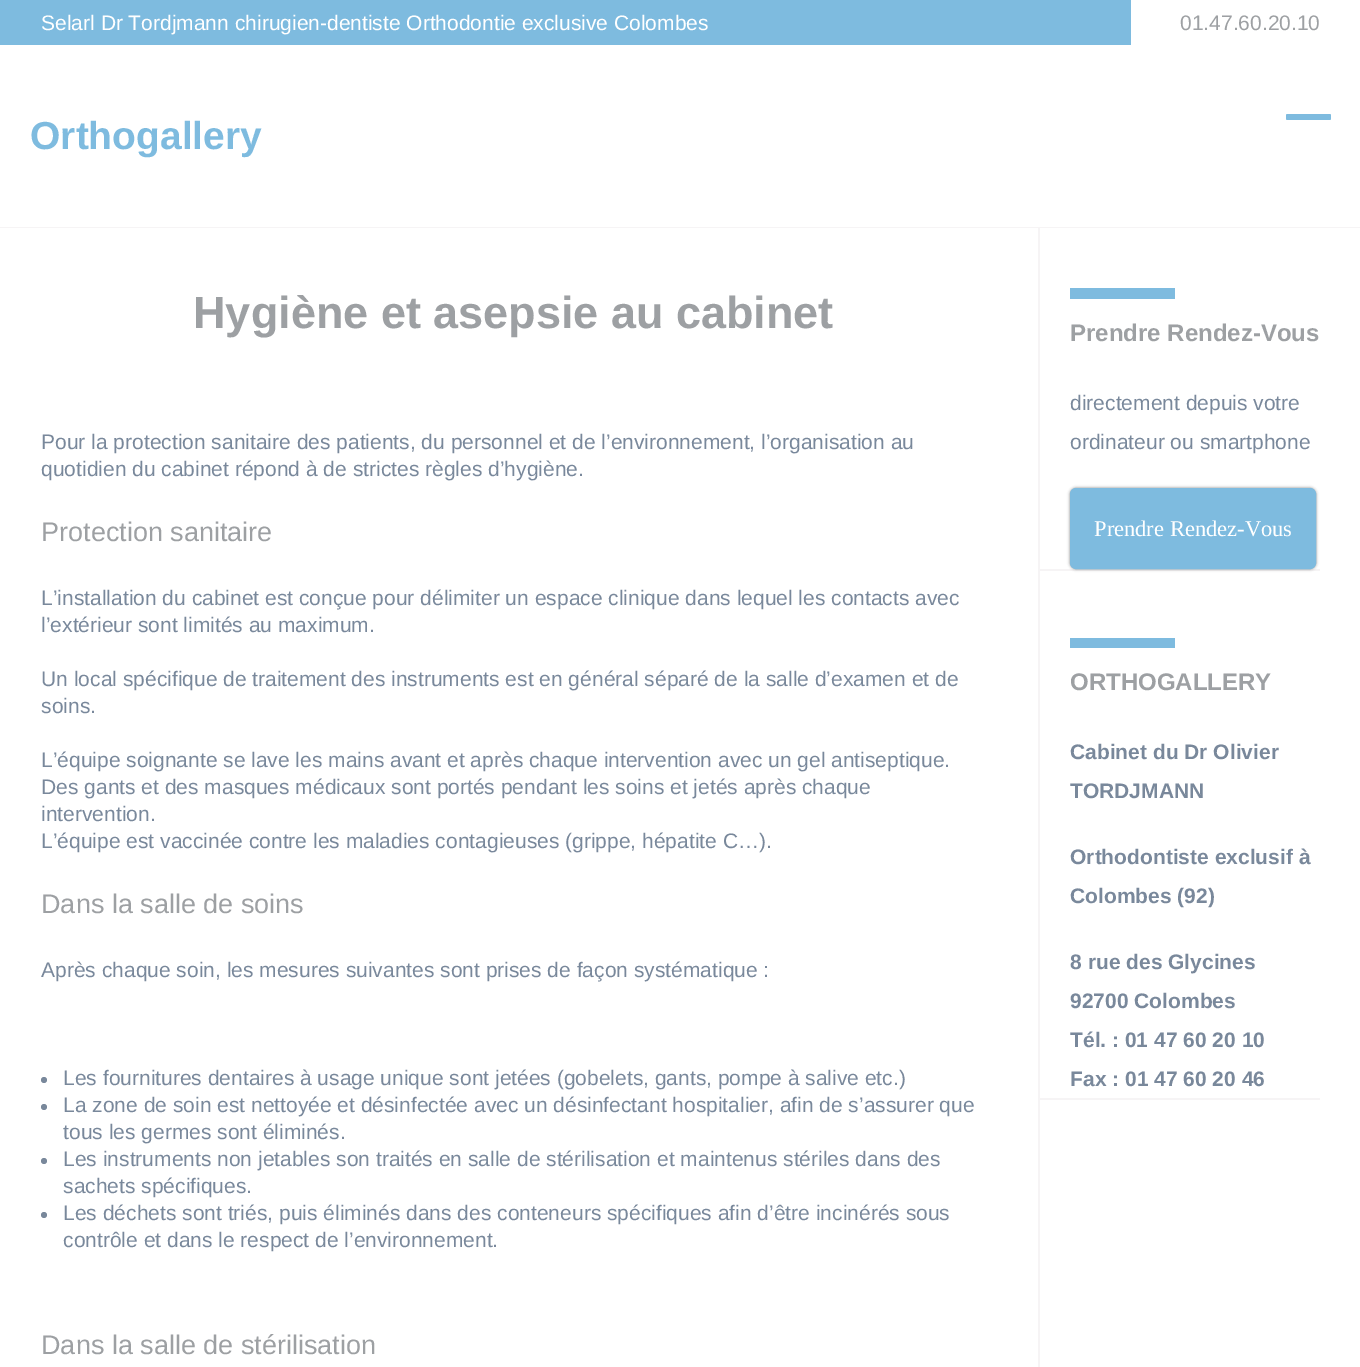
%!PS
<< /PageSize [1360 1367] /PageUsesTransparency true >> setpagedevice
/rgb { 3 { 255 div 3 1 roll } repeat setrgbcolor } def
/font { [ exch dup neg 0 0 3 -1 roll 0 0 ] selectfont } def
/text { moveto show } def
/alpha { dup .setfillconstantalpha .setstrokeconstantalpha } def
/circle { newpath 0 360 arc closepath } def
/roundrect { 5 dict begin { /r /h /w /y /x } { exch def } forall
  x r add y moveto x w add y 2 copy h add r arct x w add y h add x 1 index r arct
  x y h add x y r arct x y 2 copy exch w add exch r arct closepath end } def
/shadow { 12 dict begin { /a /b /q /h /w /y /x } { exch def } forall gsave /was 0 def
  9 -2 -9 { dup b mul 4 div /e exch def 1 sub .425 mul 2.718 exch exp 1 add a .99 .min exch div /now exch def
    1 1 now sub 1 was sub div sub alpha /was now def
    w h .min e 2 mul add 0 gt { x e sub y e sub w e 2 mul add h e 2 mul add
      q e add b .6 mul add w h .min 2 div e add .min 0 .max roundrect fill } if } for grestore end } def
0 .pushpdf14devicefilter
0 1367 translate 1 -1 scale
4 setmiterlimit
255 255 255 rgb
0 0 1360 1367 rectfill
126 187 223 rgb
0 0 1131 45 rectfill
246 244 245 rgb
0 227 1360 1 rectfill
126 187 223 rgb
1286 114 45 6 1.5 roundrect fill
246 244 245 rgb
1038 228 2 1139 rectfill
121 136 155 rgb
44 1080 3 circle fill
44 1107 3 circle fill
44 1161 3 circle fill
44 1215 3 circle fill
246 244 245 rgb
1040 569 280 2 rectfill
126 187 223 rgb
1070 288 105 11 rectfill
137 137 137 rgb
1070 488 246 81 6 1.5 1 shadow
126 187 223 rgb
1071.5 489.5 243 78 4.5 roundrect gsave fill grestore
3 setlinewidth
stroke
246 244 245 rgb
1040 1098 280 2 rectfill
126 187 223 rgb
1070 638 105 10 rectfill
/LiberationSans-Regular 21 font
255 255 255 rgb
(Selarl Dr Tordjmann chirugien-dentiste Orthodontie exclusive Colombes) 41 30 text
157 160 163 rgb
(01.47.60.20.10) 1180 30 text
/LiberationSans-Bold 39 font
126 187 223 rgb
(Orthogallery) 30 149 text
/LiberationSans-Bold 45 font
157 160 163 rgb
(Hygiène et asepsie au cabinet) 193 328 text
/LiberationSans-Regular 21 font
121 136 155 rgb
(Pour la protection sanitaire des patients, du personnel et de l’environnement, l’organisation au) 41 449 text
(quotidien du cabinet répond à de strictes règles d’hygiène.) 41 476 text
/LiberationSans-Regular 27 font
157 160 163 rgb
(Protection sanitaire) 41 541 text
/LiberationSans-Regular 21 font
121 136 155 rgb
(L’installation du cabinet est conçue pour délimiter un espace clinique dans lequel les contacts avec) 41 605 text
(l’extérieur sont limités au maximum.) 41 632 text
(Un local spécifique de traitement des instruments est en général séparé de la salle d’examen et de) 41 686 text
(soins.) 41 713 text
(L’équipe soignante se lave les mains avant et après chaque intervention avec un gel antiseptique.) 41 767 text
(Des gants et des masques médicaux sont portés pendant les soins et jetés après chaque) 41 794 text
(intervention.) 41 821 text
(L’équipe est vaccinée contre les maladies contagieuses \(grippe, hépatite C…\).) 41 848 text
/LiberationSans-Regular 27 font
157 160 163 rgb
(Dans la salle de soins) 41 913 text
/LiberationSans-Regular 21 font
121 136 155 rgb
(Après chaque soin, les mesures suivantes sont prises de façon systématique :) 41 977 text
(Les fournitures dentaires à usage unique sont jetées \(gobelets, gants, pompe à salive etc.\)) 63 1085 text
(La zone de soin est nettoyée et désinfectée avec un désinfectant hospitalier, afin de s’assurer que) 63 1112 text
(tous les germes sont éliminés.) 63 1139 text
(Les instruments non jetables son traités en salle de stérilisation et maintenus stériles dans des) 63 1166 text
(sachets spécifiques.) 63 1193 text
(Les déchets sont triés, puis éliminés dans des conteneurs spécifiques afin d’être incinérés sous) 63 1220 text
(contrôle et dans le respect de l’environnement.) 63 1247 text
/LiberationSans-Regular 27 font
157 160 163 rgb
(Dans la salle de stérilisation) 41 1354 text
/LiberationSans-Bold 24 font
(Prendre Rendez-Vous) 1070 341 text
/LiberationSans-Regular 21 font
121 136 155 rgb
(directement depuis votre) 1070 410 text
(ordinateur ou smartphone) 1070 449 text
/LiberationSerif-Regular 22.5 font
255 255 255 rgb
(Prendre Rendez-Vous) 1094 536 text
/LiberationSans-Bold 24 font
157 160 163 rgb
(ORTHOGALLERY) 1070 690 text
/LiberationSans-Bold 21 font
121 136 155 rgb
(Cabinet du Dr Olivier) 1070 759 text
(TORDJMANN) 1070 798 text
(Orthodontiste exclusif à) 1070 864 text
(Colombes \(92\)) 1070 903 text
(8 rue des Glycines) 1070 969 text
(92700 Colombes) 1070 1008 text
(Tél. : 01 47 60 20 10) 1070 1047 text
(Fax : 01 47 60 20 46) 1070 1086 text
.poppdf14devicefilter showpage
